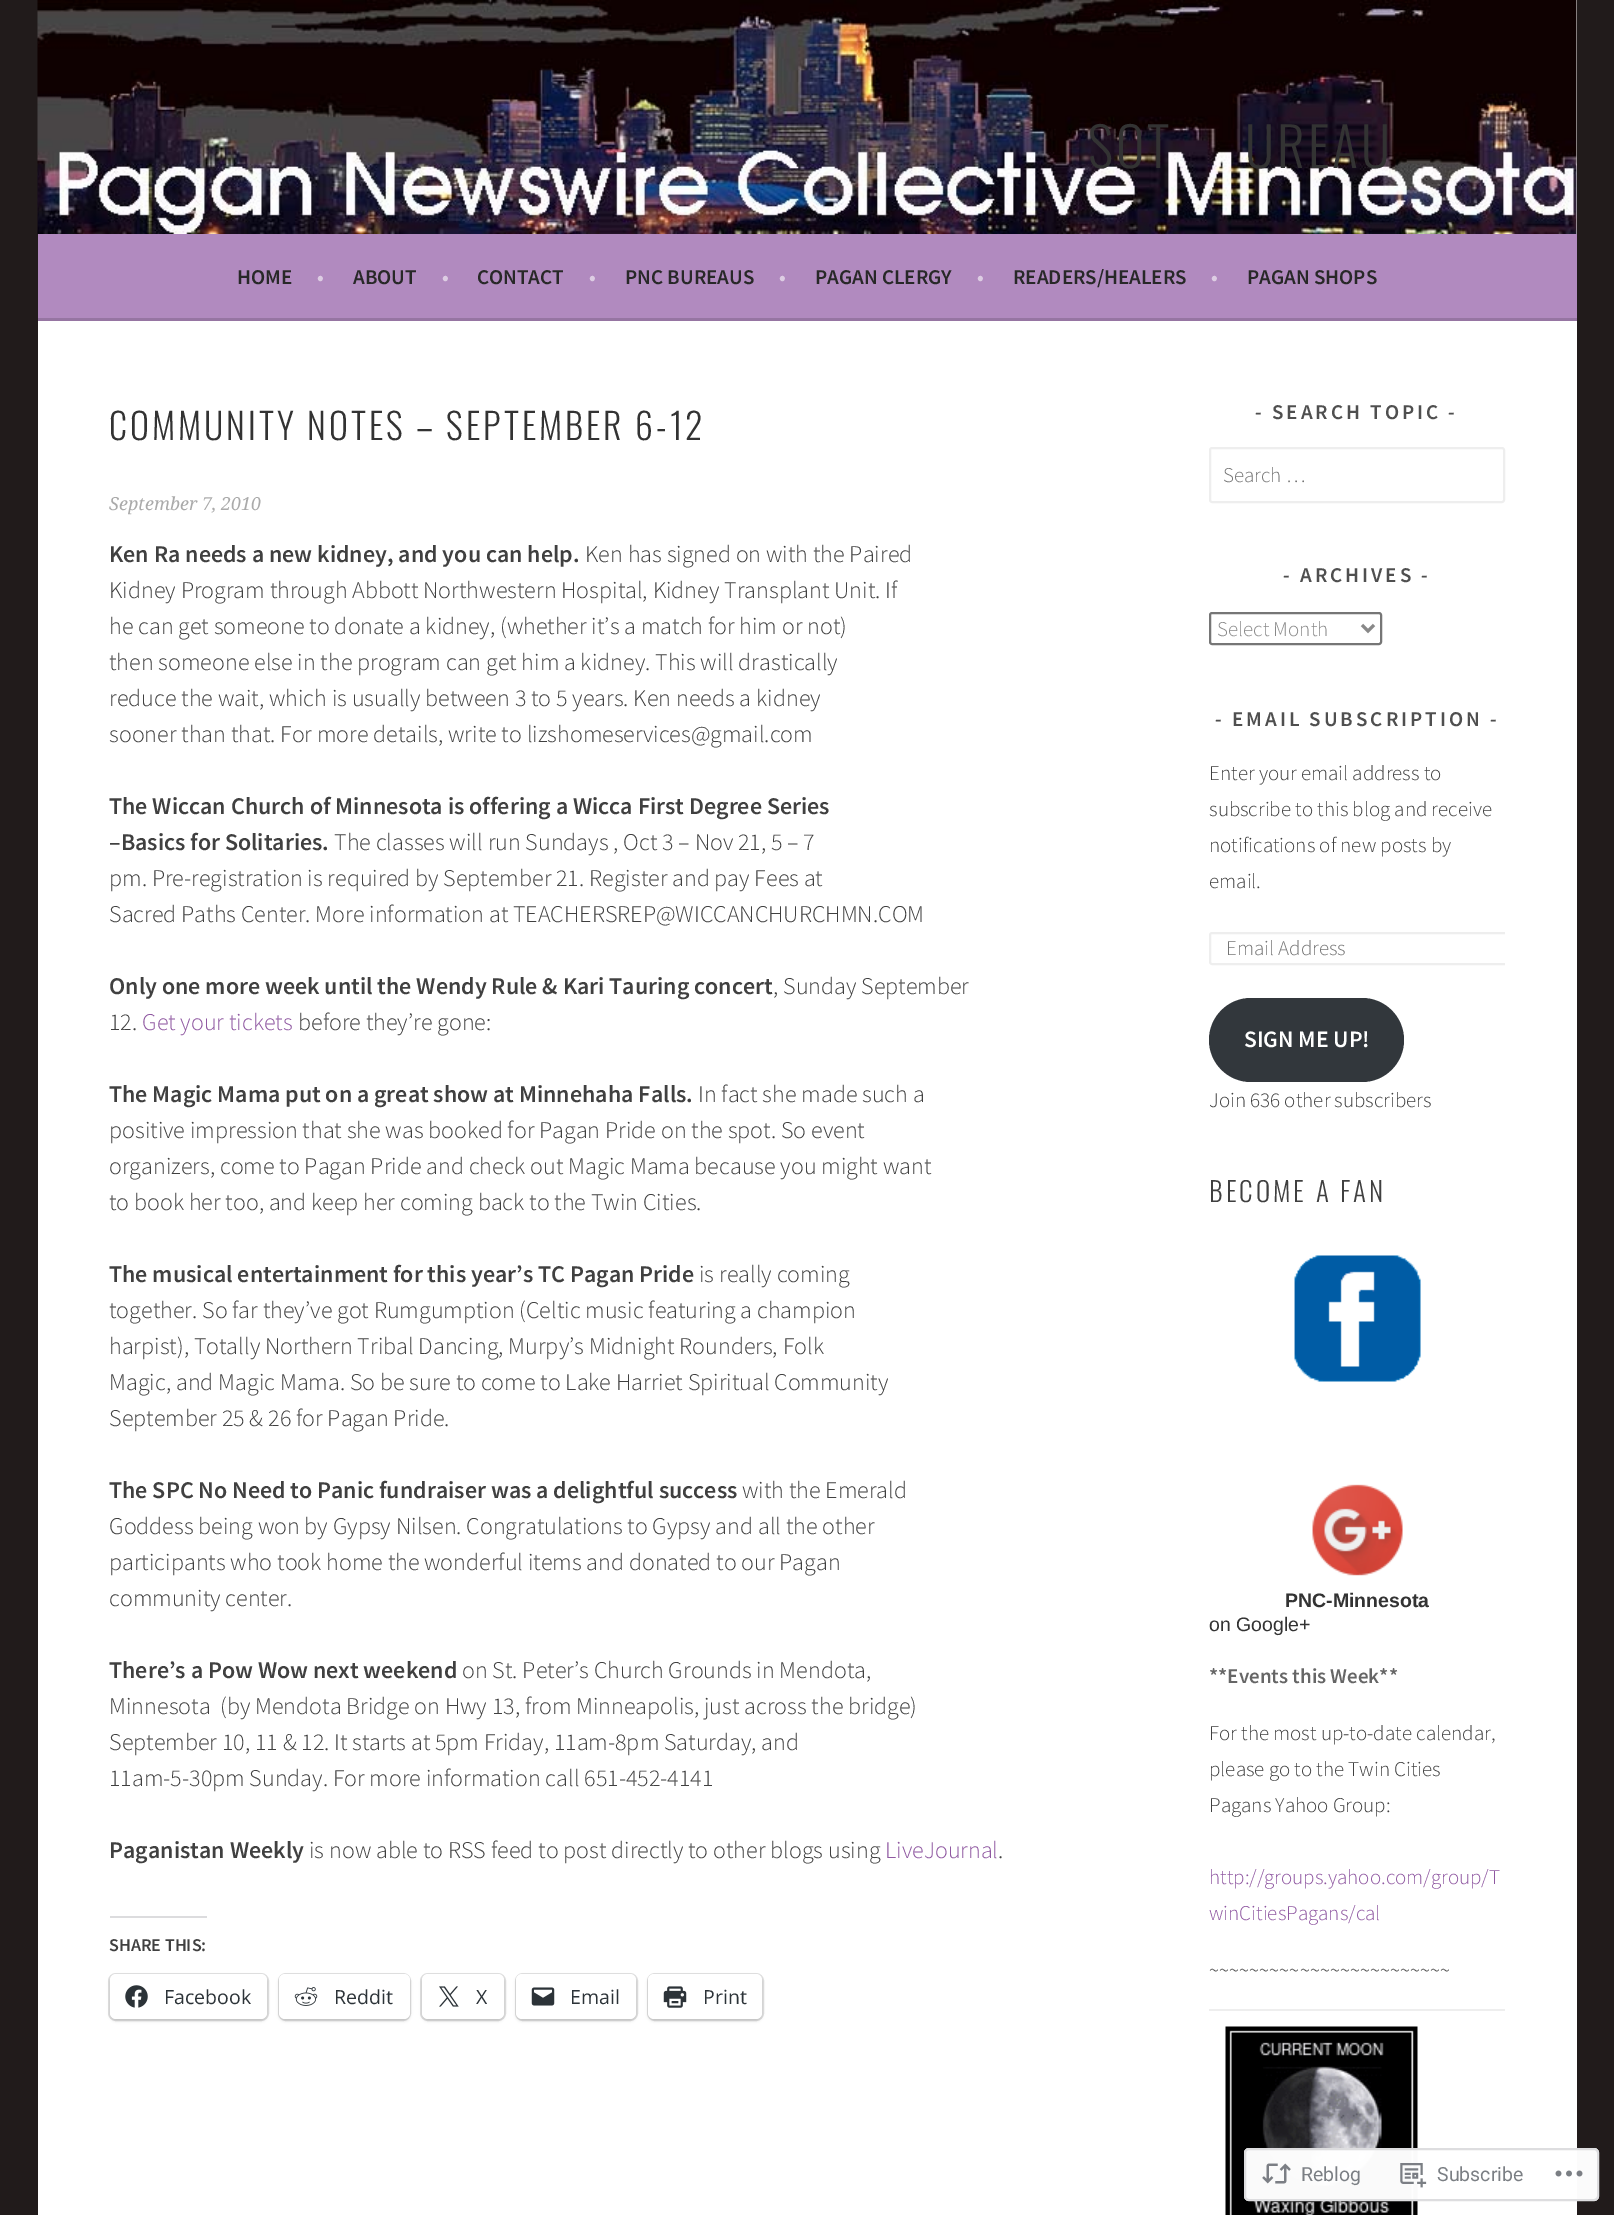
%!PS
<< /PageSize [1614 2215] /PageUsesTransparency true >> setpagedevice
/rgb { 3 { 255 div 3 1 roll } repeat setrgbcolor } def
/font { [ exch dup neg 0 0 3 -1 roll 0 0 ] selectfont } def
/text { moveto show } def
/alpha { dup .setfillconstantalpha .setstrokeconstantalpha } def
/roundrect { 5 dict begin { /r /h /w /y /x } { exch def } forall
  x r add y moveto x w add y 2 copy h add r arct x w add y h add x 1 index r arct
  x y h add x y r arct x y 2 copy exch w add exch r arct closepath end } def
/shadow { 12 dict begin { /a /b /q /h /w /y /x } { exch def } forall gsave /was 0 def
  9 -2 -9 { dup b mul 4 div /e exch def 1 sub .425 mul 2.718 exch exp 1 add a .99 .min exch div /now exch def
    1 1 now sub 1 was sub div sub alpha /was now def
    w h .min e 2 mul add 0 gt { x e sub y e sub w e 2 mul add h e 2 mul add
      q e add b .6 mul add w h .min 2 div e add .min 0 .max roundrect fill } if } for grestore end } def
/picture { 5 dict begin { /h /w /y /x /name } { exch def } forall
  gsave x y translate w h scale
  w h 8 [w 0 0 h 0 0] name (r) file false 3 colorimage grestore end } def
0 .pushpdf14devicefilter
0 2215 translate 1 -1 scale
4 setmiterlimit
33 27 27 rgb
0 0 1614 2215 rectfill
255 255 255 rgb
1576 0 1 234 rectfill
(img_01.rgb) 37 0 1540 234 picture
177 138 191 rgb
38 234 1539 84 rectfill
150 117 162 rgb
38 318 1539 3 rectfill
255 255 255 rgb
38 321 1539 1894 rectfill
220 220 222 rgb
110 1916 97 2 rectfill
224 224 224 rgb
2 setlinewidth
109 1974 159 46 7 roundrect stroke
0 0 0 rgb
110 1976 157 45 6 1.5 0.12 shadow
255 255 255 rgb
110 1974 157 45 6 roundrect fill
(img_02.rgb) 125 1985 23 23 picture
224 224 224 rgb
279 1974 131 46 7 roundrect stroke
0 0 0 rgb
279 1976 131 45 6 1.5 0.12 shadow
255 255 255 rgb
279 1974 131 45 6 roundrect fill
(img_03.rgb) 294 1987 24 19 picture
224 224 224 rgb
421 1974 84 46 7 roundrect stroke
0 0 0 rgb
422 1976 82 45 6 1.5 0.12 shadow
255 255 255 rgb
422 1974 82 45 6 roundrect fill
(img_04.rgb) 439 1986 20 21 picture
224 224 224 rgb
516 1974 121 46 7 roundrect stroke
0 0 0 rgb
516 1976 120 45 6 1.5 0.12 shadow
255 255 255 rgb
516 1974 120 45 6 roundrect fill
(img_05.rgb) 531 1987 24 19 picture
224 224 224 rgb
648 1974 115 46 7 roundrect stroke
0 0 0 rgb
648 1976 114 45 6 1.5 0.12 shadow
255 255 255 rgb
648 1974 114 45 6 roundrect fill
(img_06.rgb) 663 1986 24 22 picture
238 238 238 rgb
1210 448 294 54 2 roundrect stroke
118 118 118 rgb
1210 613 171 31 2 roundrect stroke
136 136 136 rgb
3 setlinewidth
1362 625 moveto 6 6 rlineto 6 -6 rlineto stroke
gsave
1209 393 296 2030 rectclip
238 238 238 rgb
2 setlinewidth
1210 933 312 31 2 roundrect stroke
grestore
50 55 60 rgb
1209 998 195 84 42 roundrect fill
(img_07.rgb) 1294 1255 127 127 picture
(img_08.rgb) 1312 1484 91 92 picture
238 238 238 rgb
1209 2009 296 2 rectfill
(img_09.rgb) 1225 2026 193 189 picture
0.98 alpha
255 255 255 rgb
1244 2148 355 53 5 roundrect fill
220 220 222 rgb
2 setlinewidth
1245 2149 353 51 4 roundrect stroke
1 alpha
(img_10.rgb) 1262 2163 29 21 picture
(img_11.rgb) 1400 2163 27 25 picture
(img_12.rgb) 1555 2170 28 7 picture
/Oswald-Light 54 font
51 51 51 rgb
1088 168 moveto 3 0 (SOT) ashow
1245 168 moveto 3 0 (UREAU) ashow
/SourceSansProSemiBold-SemiBold 21 font
40 40 40 rgb
(HOME) 237 284 text
221 205 227 rgb
(•) 317 284 text
40 40 40 rgb
(ABOUT) 353 284 text
221 205 227 rgb
(•) 442 284 text
40 40 40 rgb
(CONTACT) 477 284 text
221 205 227 rgb
(•) 589 284 text
40 40 40 rgb
(PNC BUREAUS) 625 284 text
221 205 227 rgb
(•) 779 284 text
40 40 40 rgb
(PAGAN CLERGY) 815 284 text
221 205 227 rgb
(•) 977 284 text
40 40 40 rgb
(READERS/HEALERS) 1013 284 text
221 205 227 rgb
(•) 1211 284 text
40 40 40 rgb
(PAGAN SHOPS) 1247 284 text
/Oswald-Light 36 font
51 51 51 rgb
109 440 moveto 3 0 (COMMUNITY NOTES – SEPTEMBER 6-12) ashow
/DroidSerif-Italic 18 font
170 170 170 rgb
(September 7, 2010) 109 510 text
/SourceSansProSemiBold-SemiBold 24 font
64 64 64 rgb
(Ken Ra needs a new kidney, and you can help.) 109 562 text
/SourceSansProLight-Light 24 font
(Ken has signed on with the Paired) 585 562 text
(Kidney Program through Abbott Northwestern Hospital, Kidney Transplant Unit. If) 109 598 text
(he can get someone to donate a kidney, \(whether it’s a match for him or not\)) 109 634 text
(then someone else in the program can get him a kidney. This will drastically) 109 670 text
(reduce the wait, which is usually between 3 to 5 years. Ken needs a kidney) 109 706 text
(sooner than that. For more details, write to lizshomeservices@gmail.com) 109 742 text
/SourceSansProSemiBold-SemiBold 24 font
(The Wiccan Church of Minnesota is offering a Wicca First Degree Series) 109 814 text
(–Basics for Solitaries.) 109 850 text
/SourceSansProLight-Light 24 font
(The classes will run Sundays , Oct 3 – Nov 21, 5 – 7) 334 850 text
(pm. Pre-registration is required by September 21. Register and pay Fees at) 109 886 text
(Sacred Paths Center. More information at TEACHERSREP@WICCANCHURCHMN.COM) 109 922 text
/SourceSansProSemiBold-SemiBold 24 font
(Only one more week until the Wendy Rule & Kari Tauring concert) 109 994 text
/SourceSansProLight-Light 24 font
(, Sunday September) 773 994 text
(12.) 109 1030 text
143 88 161 rgb
(Get your tickets) 142 1030 text
64 64 64 rgb
(before they’re gone:) 298 1030 text
/SourceSansProSemiBold-SemiBold 24 font
(The Magic Mama put on a great show at Minnehaha Falls.) 109 1102 text
/SourceSansProLight-Light 24 font
(In fact she made such a) 698 1102 text
(positive impression that she was booked for Pagan Pride on the spot. So event) 109 1138 text
(organizers, come to Pagan Pride and check out Magic Mama because you might want) 109 1174 text
(to book her too, and keep her coming back to the Twin Cities.) 109 1210 text
/SourceSansProSemiBold-SemiBold 24 font
(The musical entertainment for this year’s TC Pagan Pride) 109 1282 text
/SourceSansProLight-Light 24 font
(is really coming) 699 1282 text
(together. So far they’ve got Rumgumption \(Celtic music featuring a champion) 109 1318 text
(harpist\), Totally Northern Tribal Dancing, Murpy’s Midnight Rounders, Folk) 109 1354 text
(Magic, and Magic Mama. So be sure to come to Lake Harriet Spiritual Community) 109 1390 text
(September 25 & 26 for Pagan Pride.) 109 1426 text
/SourceSansProSemiBold-SemiBold 24 font
(The SPC No Need to Panic fundraiser was a delightful success) 109 1498 text
/SourceSansProLight-Light 24 font
(with the Emerald) 742 1498 text
(Goddess being won by Gypsy Nilsen. Congratulations to Gypsy and all the other) 109 1534 text
(participants who took home the wonderful items and donated to our Pagan) 109 1570 text
(community center.) 109 1606 text
/SourceSansProSemiBold-SemiBold 24 font
(There’s a Pow Wow next weekend) 109 1678 text
/SourceSansProLight-Light 24 font
(on St. Peter’s Church Grounds in Mendota,) 462 1678 text
(Minnesota  \(by Mendota Bridge on Hwy 13, from Minneapolis, just across the bridge\)) 109 1714 text
(September 10, 11 & 12. It starts at 5pm Friday, 11am-8pm Saturday, and) 109 1750 text
(11am-5-30pm Sunday. For more information call 651-452-4141) 109 1786 text
/SourceSansProSemiBold-SemiBold 24 font
(Paganistan Weekly) 109 1858 text
/SourceSansProLight-Light 24 font
(is now able to RSS feed to post directly to other blogs using) 309 1858 text
143 88 161 rgb
(LiveJournal) 885 1858 text
64 64 64 rgb
(.) 998 1858 text
/SourceSansProSemiBold-SemiBold 18 font
(SHARE THIS:) 109 1951 text
/OpenSans-Regular 19.5 font
44 51 56 rgb
(Facebook) 164 2004 text
(Reddit) 334 2004 text
(X) 476 2004 text
(Email) 570 2004 text
(Print) 703 2004 text
/SourceSansProSemiBold-SemiBold 21 font
79 79 79 rgb
1255 419 moveto 3 0 (- SEARCH TOPIC -) ashow
/SourceSansProLight-Light 21 font
117 117 117 rgb
(Search …) 1223 482 text
/SourceSansProSemiBold-SemiBold 21 font
79 79 79 rgb
1283 582 moveto 3 0 (- ARCHIVES -) ashow
/SourceSansProLight-Light 21 font
136 136 136 rgb
(Select Month) 1217 636 text
/SourceSansProSemiBold-SemiBold 21 font
79 79 79 rgb
1215 726 moveto 3 0 (- EMAIL SUBSCRIPTION -) ashow
/SourceSansProLight-Light 21 font
64 64 64 rgb
(Enter your email address to) 1209 780 text
(subscribe to this blog and receive) 1209 816 text
(notifications of new posts by) 1209 852 text
(email.) 1209 888 text
117 117 117 rgb
(Email Address) 1226 955 text
/SourceSansProSemiBold-SemiBold 23.5 font
255 255 255 rgb
(SIGN ME UP!) 1244 1047 text
/SourceSansProLight-Light 21 font
64 64 64 rgb
(Join 636 other subscribers) 1209 1107 text
/Oswald-Light 27 font
1209 1202 moveto 3 0 (BECOME A FAN) ashow
/LiberationSans-Bold 19.5 font
51 51 51 rgb
(PNC-Minnesota) 1285 1607 text
/LiberationSans-Regular 19.5 font
(on Google+) 1209 1631 text
/SourceSansProSemiBold-SemiBold 21 font
102 102 102 rgb
(**Events this Week**) 1209 1683 text
/SourceSansProLight-Light 21 font
64 64 64 rgb
(For the most up-to-date calendar,) 1209 1740 text
(please go to the Twin Cities) 1209 1776 text
(Pagans Yahoo Group:) 1209 1812 text
143 88 161 rgb
(http://groups.yahoo.com/group/T) 1209 1884 text
(winCitiesPagans/cal) 1209 1920 text
64 64 64 rgb
(~~~~~~~~~~~~~~~~~~~~~~~~) 1209 1977 text
/Roboto-Regular 19.5 font
123 127 132 rgb
(Reblog) 1301 2181 text
(Subscribe) 1437 2181 text
.poppdf14devicefilter showpage
